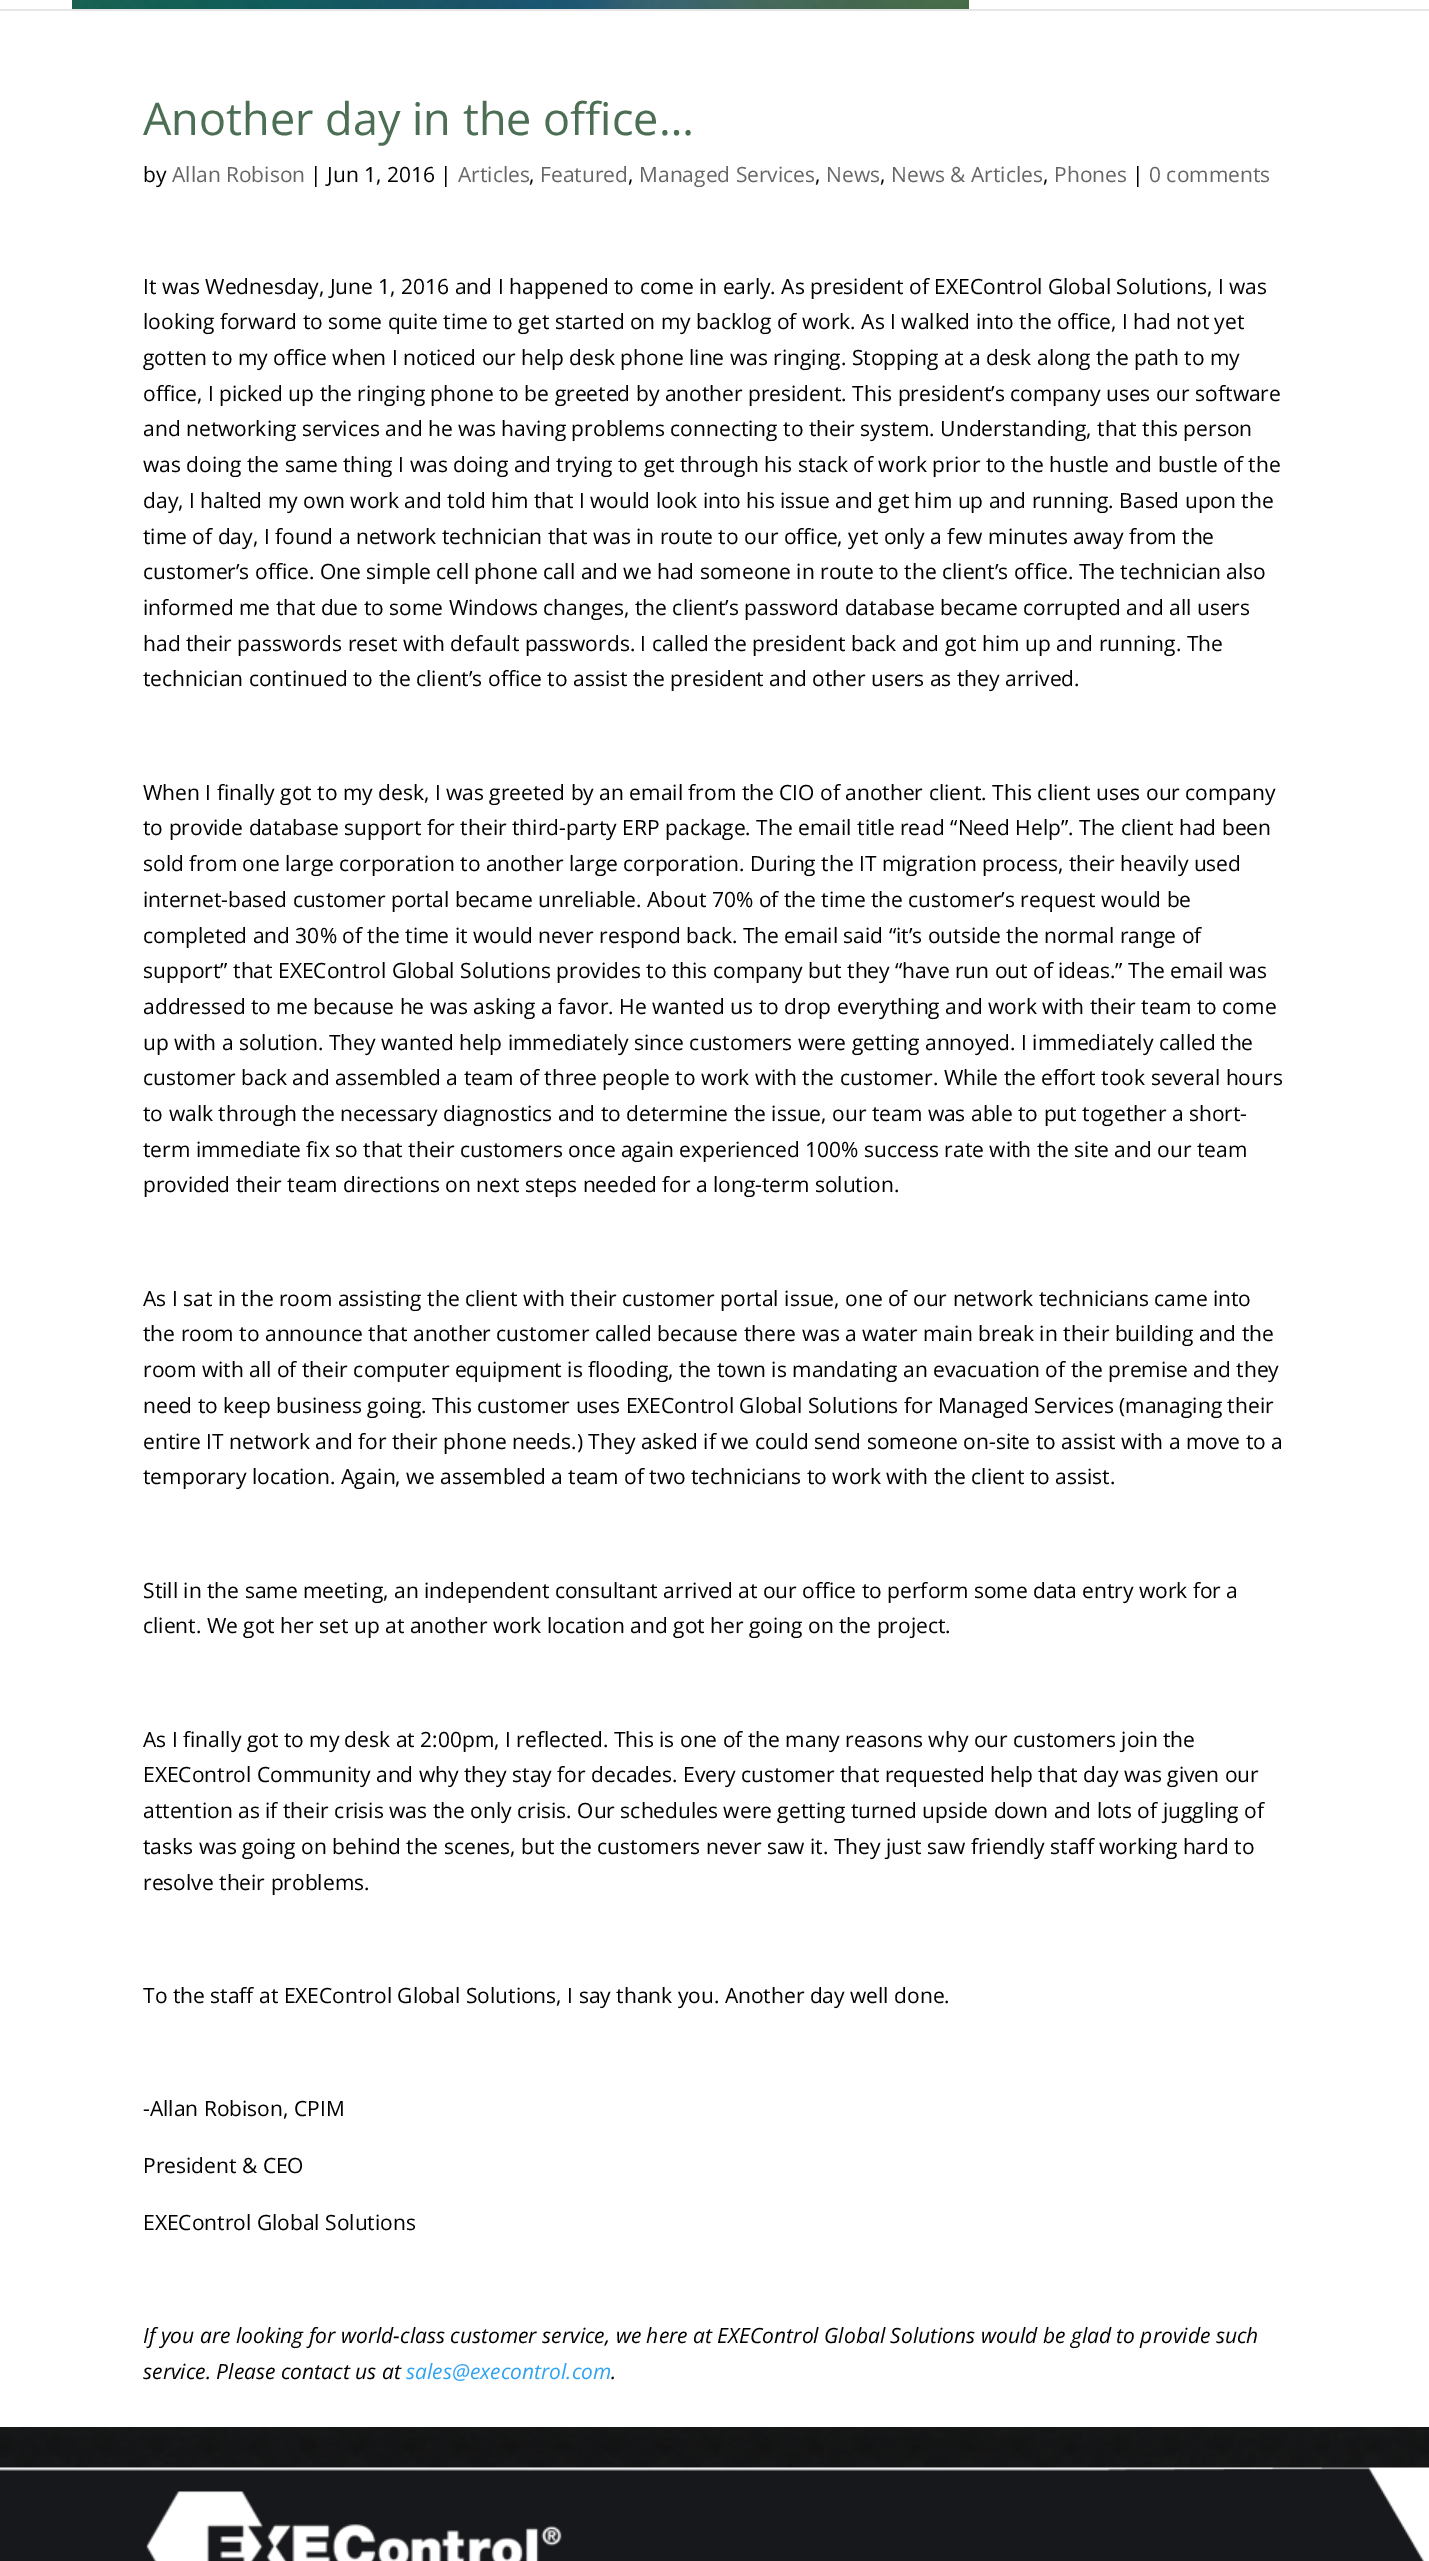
%!PS
<< /PageSize [1429 2561] >> setpagedevice
/rgb { 3 { 255 div 3 1 roll } repeat setrgbcolor } def
/font { [ exch dup neg 0 0 3 -1 roll 0 0 ] selectfont } def
/text { moveto show } def
/picture { 5 dict begin { /h /w /y /x /name } { exch def } forall
  gsave x y translate w h scale
  w h 8 [w 0 0 h 0 0] name (r) file false 3 colorimage grestore end } def
0 2561 translate 1 -1 scale
4 setmiterlimit
255 255 255 rgb
0 0 1429 2561 rectfill
(img_01.rgb) 0 0 1429 2468 picture
230 230 230 rgb
0 9 moveto 0 2 rlineto 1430 0 rlineto 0 -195 rlineto 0 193 rlineto closepath fill
255 255 255 rgb
0 0 72 9 rectfill
969 0 460 9 rectfill
0 11 1429 2416 rectfill
(img_02.rgb) 0 2467 1429 94 picture
(img_03.rgb) 146 2491 416 70 picture
/OpenSans-Regular 45 font
75 110 84 rgb
(Another day in the office…) 143 135 text
/OpenSans-Regular 21 font
0 0 0 rgb
(by) 143 182 text
102 102 102 rgb
(Allan Robison) 172 182 text
0 0 0 rgb
(| Jun 1, 2016 |) 310 182 text
102 102 102 rgb
(Articles) 458 182 text
0 0 0 rgb
(,) 529 182 text
102 102 102 rgb
(Featured) 540 182 text
0 0 0 rgb
(,) 628 182 text
102 102 102 rgb
(Managed Services) 639 182 text
0 0 0 rgb
(,) 815 182 text
102 102 102 rgb
(News) 826 182 text
0 0 0 rgb
(,) 880 182 text
102 102 102 rgb
(News & Articles) 891 182 text
0 0 0 rgb
(,) 1043 182 text
102 102 102 rgb
(Phones) 1054 182 text
0 0 0 rgb
(|) 1132 182 text
102 102 102 rgb
(0 comments) 1149 182 text
0 0 0 rgb
(It was Wednesday, June 1, 2016 and I happened to come in early. As president of EXEControl Global Solutions, I was) 143 294 text
(looking forward to some quite time to get started on my backlog of work. As I walked into the office, I had not yet) 143 329 text
(gotten to my office when I noticed our help desk phone line was ringing. Stopping at a desk along the path to my) 143 365 text
(office, I picked up the ringing phone to be greeted by another president. This president’s company uses our software) 143 401 text
(and networking services and he was having problems connecting to their system. Understanding, that this person) 143 436 text
(was doing the same thing I was doing and trying to get through his stack of work prior to the hustle and bustle of the) 143 472 text
(day, I halted my own work and told him that I would look into his issue and get him up and running. Based upon the) 143 508 text
(time of day, I found a network technician that was in route to our office, yet only a few minutes away from the) 143 544 text
(customer’s office. One simple cell phone call and we had someone in route to the client’s office. The technician also) 143 579 text
(informed me that due to some Windows changes, the client’s password database became corrupted and all users) 143 615 text
(had their passwords reset with default passwords. I called the president back and got him up and running. The) 143 651 text
(technician continued to the client’s office to assist the president and other users as they arrived.) 143 686 text
(When I finally got to my desk, I was greeted by an email from the CIO of another client. This client uses our company) 143 800 text
(to provide database support for their third-party ERP package. The email title read “Need Help”. The client had been) 143 835 text
(sold from one large corporation to another large corporation. During the IT migration process, their heavily used) 143 871 text
(internet-based customer portal became unreliable. About 70% of the time the customer’s request would be) 143 907 text
(completed and 30% of the time it would never respond back. The email said “it’s outside the normal range of) 143 943 text
(support” that EXEControl Global Solutions provides to this company but they “have run out of ideas.” The email was) 143 978 text
(addressed to me because he was asking a favor. He wanted us to drop everything and work with their team to come) 143 1014 text
(up with a solution. They wanted help immediately since customers were getting annoyed. I immediately called the) 143 1050 text
(customer back and assembled a team of three people to work with the customer. While the effort took several hours) 143 1085 text
(to walk through the necessary diagnostics and to determine the issue, our team was able to put together a short-) 143 1121 text
(term immediate fix so that their customers once again experienced 100% success rate with the site and our team) 143 1157 text
(provided their team directions on next steps needed for a long-term solution.) 143 1192 text
(As I sat in the room assisting the client with their customer portal issue, one of our network technicians came into) 143 1306 text
(the room to announce that another customer called because there was a water main break in their building and the) 143 1341 text
(room with all of their computer equipment is flooding, the town is mandating an evacuation of the premise and they) 143 1377 text
(need to keep business going. This customer uses EXEControl Global Solutions for Managed Services \(managing their) 143 1413 text
(entire IT network and for their phone needs.\) They asked if we could send someone on-site to assist with a move to a) 143 1449 text
(temporary location. Again, we assembled a team of two technicians to work with the client to assist.) 143 1484 text
(Still in the same meeting, an independent consultant arrived at our office to perform some data entry work for a) 143 1598 text
(client. We got her set up at another work location and got her going on the project.) 143 1633 text
(As I finally got to my desk at 2:00pm, I reflected. This is one of the many reasons why our customers join the) 143 1747 text
(EXEControl Community and why they stay for decades. Every customer that requested help that day was given our) 143 1782 text
(attention as if their crisis was the only crisis. Our schedules were getting turned upside down and lots of juggling of) 143 1818 text
(tasks was going on behind the scenes, but the customers never saw it. They just saw friendly staff working hard to) 143 1854 text
(resolve their problems.) 143 1890 text
(To the staff at EXEControl Global Solutions, I say thank you. Another day well done.) 143 2003 text
(-Allan Robison, CPIM) 143 2116 text
(President & CEO) 143 2173 text
(EXEControl Global Solutions) 143 2230 text
/OpenSans-Italic 21 font
(If you are looking for world-class customer service, we here at EXEControl Global Solutions would be glad to provide such) 143 2343 text
(service. Please contact us at) 143 2379 text
46 163 242 rgb
(sales@execontrol.com) 406 2379 text
0 0 0 rgb
(.) 611 2379 text
showpage
